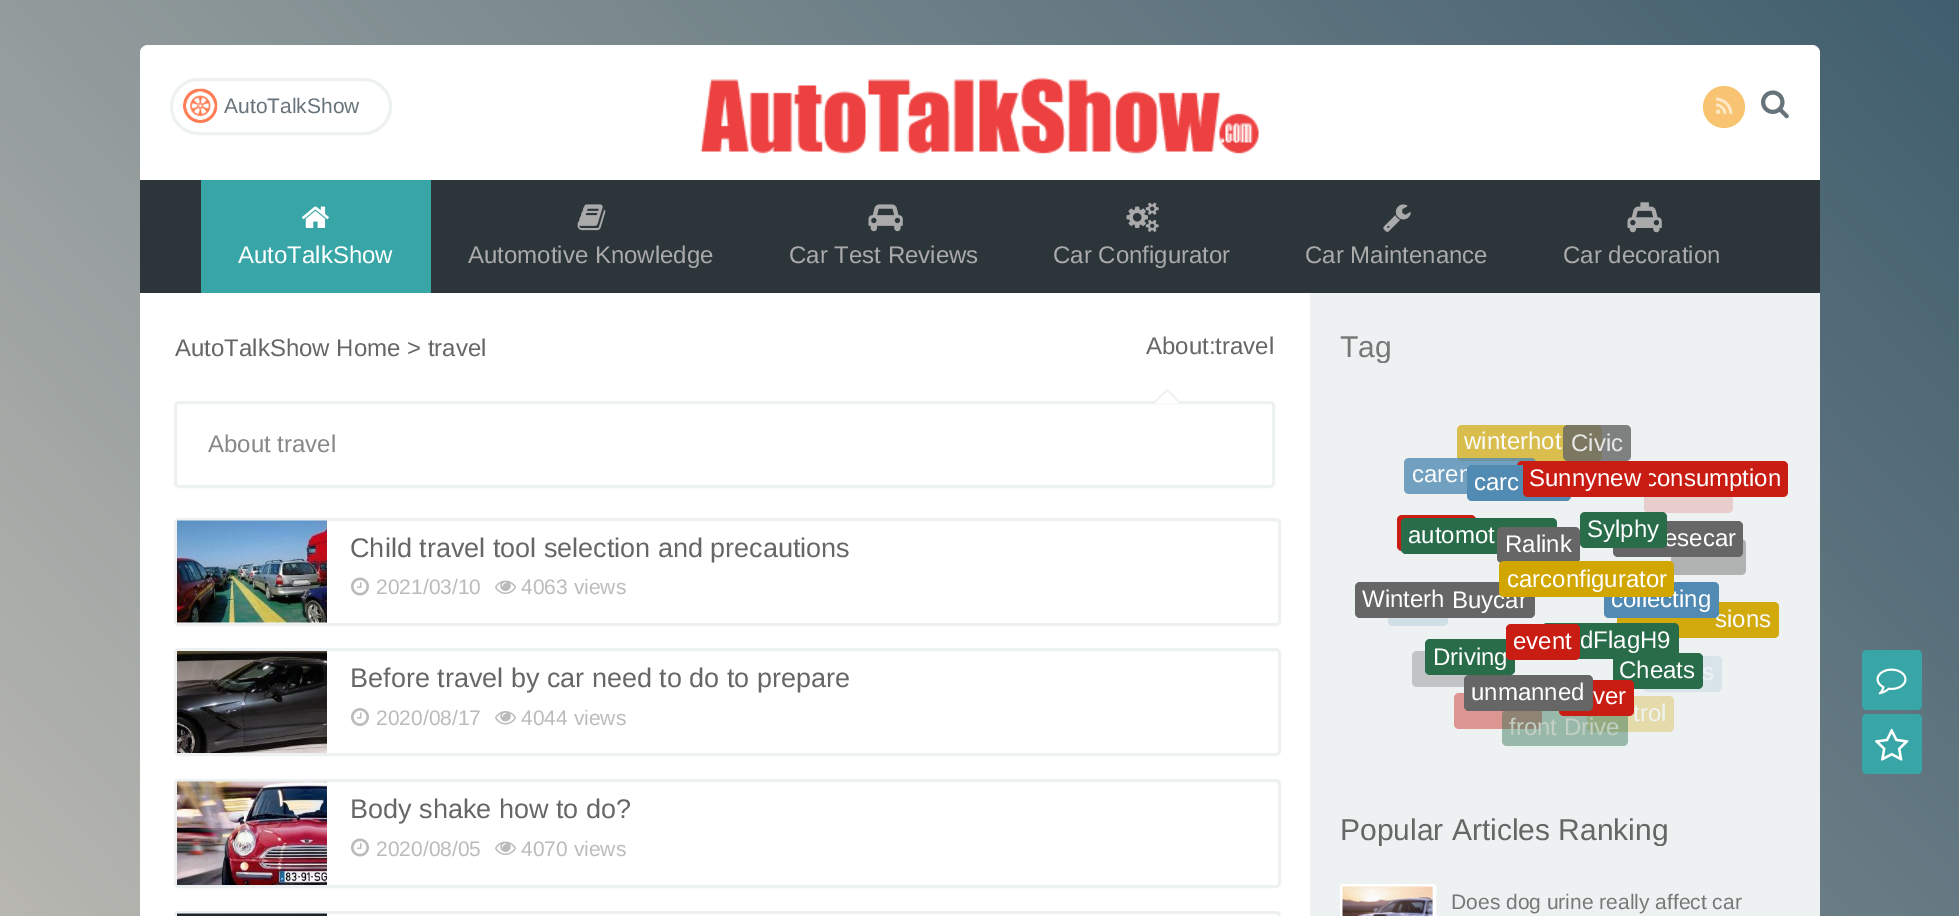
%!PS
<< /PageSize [1959 916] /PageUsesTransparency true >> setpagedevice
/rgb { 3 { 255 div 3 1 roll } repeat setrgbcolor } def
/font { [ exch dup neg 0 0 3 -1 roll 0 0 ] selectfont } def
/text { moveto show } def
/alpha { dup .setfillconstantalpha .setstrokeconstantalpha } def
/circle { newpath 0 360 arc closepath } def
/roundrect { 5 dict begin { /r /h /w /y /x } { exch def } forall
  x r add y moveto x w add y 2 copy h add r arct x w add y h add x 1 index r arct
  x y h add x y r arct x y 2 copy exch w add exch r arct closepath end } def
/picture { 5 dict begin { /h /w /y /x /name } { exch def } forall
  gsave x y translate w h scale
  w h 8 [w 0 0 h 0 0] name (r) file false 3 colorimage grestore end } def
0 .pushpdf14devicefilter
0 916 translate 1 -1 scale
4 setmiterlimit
255 255 255 rgb
0 0 1959 916 rectfill
gsave 0 0 moveto 1959 0 rlineto 0 916 rlineto -1959 0 rlineto closepath clip newpath
<< /ShadingType 2 /ColorSpace /DeviceRGB /Coords [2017 62 -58 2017] /Extend [true true] /Function << /FunctionType 2 /Domain [0 1] /C0 [0.251 0.369 0.431] /C1 [0.902 0.855 0.796] /N 1 >> >> shfill grestore
140 45 1680 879 8 roundrect fill
237 241 242 rgb
3 setlinewidth
171.5 79.5 219 54 27 roundrect stroke
(img_01.rgb) 183 88 35 35 picture
(img_02.rgb) 700 77 559 77 picture
248 196 113 rgb
1724 107 21 circle fill
(img_03.rgb) 1716 97 17 17 picture
(img_04.rgb) 1761 90 28 29 picture
44 53 58 rgb
140 180 1680 113 rectfill
56 166 166 rgb
201 180 230 113 rectfill
(img_05.rgb) 302 206 27 22 picture
(img_06.rgb) 577 204 29 27 picture
(img_07.rgb) 868 204 35 28 picture
(img_08.rgb) 1126 202 33 30 picture
(img_09.rgb) 1383 204 28 28 picture
(img_10.rgb) 1627 202 35 31 picture
237 241 242 rgb
1310 293 510 623 rectfill
175.5 402.5 1098 84 3.5 roundrect stroke
1182 403.5 moveto -30 0 rlineto 15 -15 rlineto closepath fill
255 255 255 rgb
1179 403.5 moveto -24 0 rlineto 12 -12 rlineto closepath fill
237 241 242 rgb
175.5 519.5 1104 105 3.5 roundrect stroke
(img_11.rgb) 177 520 150 103 picture
(img_12.rgb) 351 577 18 19 picture
(img_13.rgb) 495 580 21 14 picture
175.5 649.5 1104 105 3.5 roundrect stroke
(img_14.rgb) 177 651 150 102 picture
(img_15.rgb) 351 708 18 18 picture
(img_16.rgb) 495 711 21 14 picture
175.5 780.5 1104 106 3.5 roundrect stroke
(img_17.rgb) 177 781 150 104 picture
(img_12.rgb) 351 838 18 19 picture
(img_13.rgb) 495 841 21 14 picture
175.5 912.5 1104 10 3.5 roundrect stroke
(img_18.rgb) 177 913 150 3 picture
218 190 77 rgb
1457 425 145 36 5 roundrect fill
0.81 alpha
102 102 102 rgb
1563 425 68 36 5 roundrect fill
0.79 alpha
81 138 178 rgb
1404 458 132 36 5 roundrect fill
1 alpha
231 205 204 rgb
1644 477 89 36 5 roundrect fill
201 29 19 rgb
1517 461 271 36 5 roundrect fill
1397 515 79 36 5 roundrect fill
40 108 74 rgb
1401 518 156 36 5 roundrect fill
102 102 102 rgb
1497 527 83 36 5 roundrect fill
177 179 179 rgb
1671 539 75 36 5 roundrect fill
102 102 102 rgb
1613 521 130 36 5 roundrect fill
208 222 230 rgb
1388 590 60 36 5 roundrect fill
102 102 102 rgb
1355 582 163 36 5 roundrect fill
1445 582 90 36 5 roundrect fill
210 170 13 rgb
1617 602 162 36 5 roundrect fill
217 228 234 rgb
1643 656 79 36 5 roundrect fill
40 108 74 rgb
1613 653 90 36 5 roundrect fill
1542 623 137 36 5 roundrect fill
193 195 196 rgb
1412 651 67 36 5 roundrect fill
40 108 74 rgb
1425 639 90 36 5 roundrect fill
201 29 19 rgb
1506 624 74 36 5 roundrect fill
221 149 146 rgb
1454 693 88 36 5 roundrect fill
229 219 170 rgb
1587 696 87 36 5 roundrect fill
0.43 alpha
40 108 74 rgb
1502 710 126 36 5 roundrect fill
1 alpha
255 255 255 rgb
1341.5 885.5 93 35 1.5 roundrect stroke
(img_19.rgb) 1342 886 91 30 picture
56 166 166 rgb
1862 650 60 60 5 roundrect fill
(img_20.rgb) 1876 668 31 27 picture
1862 714 60 60 5 roundrect fill
(img_21.rgb) 1875 728 34 33 picture
/LiberationSans-Regular 21 font
103 115 122 rgb
(AutoTalkShow) 224 113 text
/LiberationSans-Regular 24 font
255 255 255 rgb
(AutoTalkShow) 238 263 text
170 170 170 rgb
(Automotive Knowledge) 468 263 text
(Car Test Reviews) 789 263 text
(Car Configurator) 1053 263 text
(Car Maintenance) 1305 263 text
(Car decoration) 1563 263 text
102 102 102 rgb
(AutoTalkShow Home > travel) 175 356 text
(About:travel) 1146 354 text
136 136 136 rgb
(About travel) 208 452 text
/LiberationSans-Regular 27 font
102 102 102 rgb
(Child travel tool selection and precautions) 350 557 text
/LiberationSans-Regular 21 font
187 187 187 rgb
(2021/03/10) 376 594 text
(4063 views) 521 594 text
/LiberationSans-Regular 27 font
102 102 102 rgb
(Before travel by car need to do to prepare) 350 687 text
/LiberationSans-Regular 21 font
187 187 187 rgb
(2020/08/17) 376 725 text
(4044 views) 521 725 text
/LiberationSans-Regular 27 font
102 102 102 rgb
(Body shake how to do?) 350 818 text
/LiberationSans-Regular 21 font
187 187 187 rgb
(2020/08/05) 376 856 text
(4070 views) 521 856 text
gsave
1340 330 450 33 rectclip
/LiberationSans-Regular 30 font
119 119 119 rgb
(Tag) 1340 357 text
grestore
/LiberationSans-Regular 24 font
249 251 251 rgb
(winterhot) 1464 449 text
231 231 229 rgb
(Civic) 1571 451 text
249 251 251 rgb
(caren) 1412 482 text
81 138 178 rgb
1467 465 104 36 5 roundrect fill
255 255 255 rgb
(carc) 1474 490 text
(consumption) 1645 486 text
201 29 19 rgb
1523 461 126 36 5 roundrect fill
255 255 255 rgb
(Sunnynew) 1529 486 text
(automot) 1408 543 text
(Ralink) 1505 552 text
(esecar) 1664 546 text
40 108 74 rgb
1580 512 87 36 5 roundrect fill
255 255 255 rgb
(Sylphy) 1587 537 text
(Winterh) 1362 607 text
(Buycar) 1452 608 text
249 251 251 rgb
(sions) 1715 627 text
81 138 178 rgb
1604 582 115 36 5 roundrect fill
255 255 255 rgb
(collecting) 1611 607 text
209 166 1 rgb
1499 561 175 36 5 roundrect fill
255 255 255 rgb
(carconfigurator) 1507 587 text
(event) 1513 649 text
(dFlagH9) 1580 648 text
(Driving) 1433 665 text
(Cheats) 1619 678 text
239 243 244 rgb
(s) 1702 680 text
(trol) 1633 721 text
201 29 19 rgb
1559 680 75 36 5 roundrect fill
102 102 102 rgb
1464 675 129 36 5 roundrect fill
255 255 255 rgb
(unmanned) 1471 700 text
(ver) 1593 704 text
194 207 195 rgb
(front Drive) 1509 735 text
gsave
1340 813 450 33 rectclip
/LiberationSans-Regular 30 font
102 102 102 rgb
(Popular Articles Ranking) 1340 840 text
grestore
/LiberationSans-Regular 21 font
119 119 119 rgb
(Does dog urine really affect car) 1451 909 text
.poppdf14devicefilter showpage
